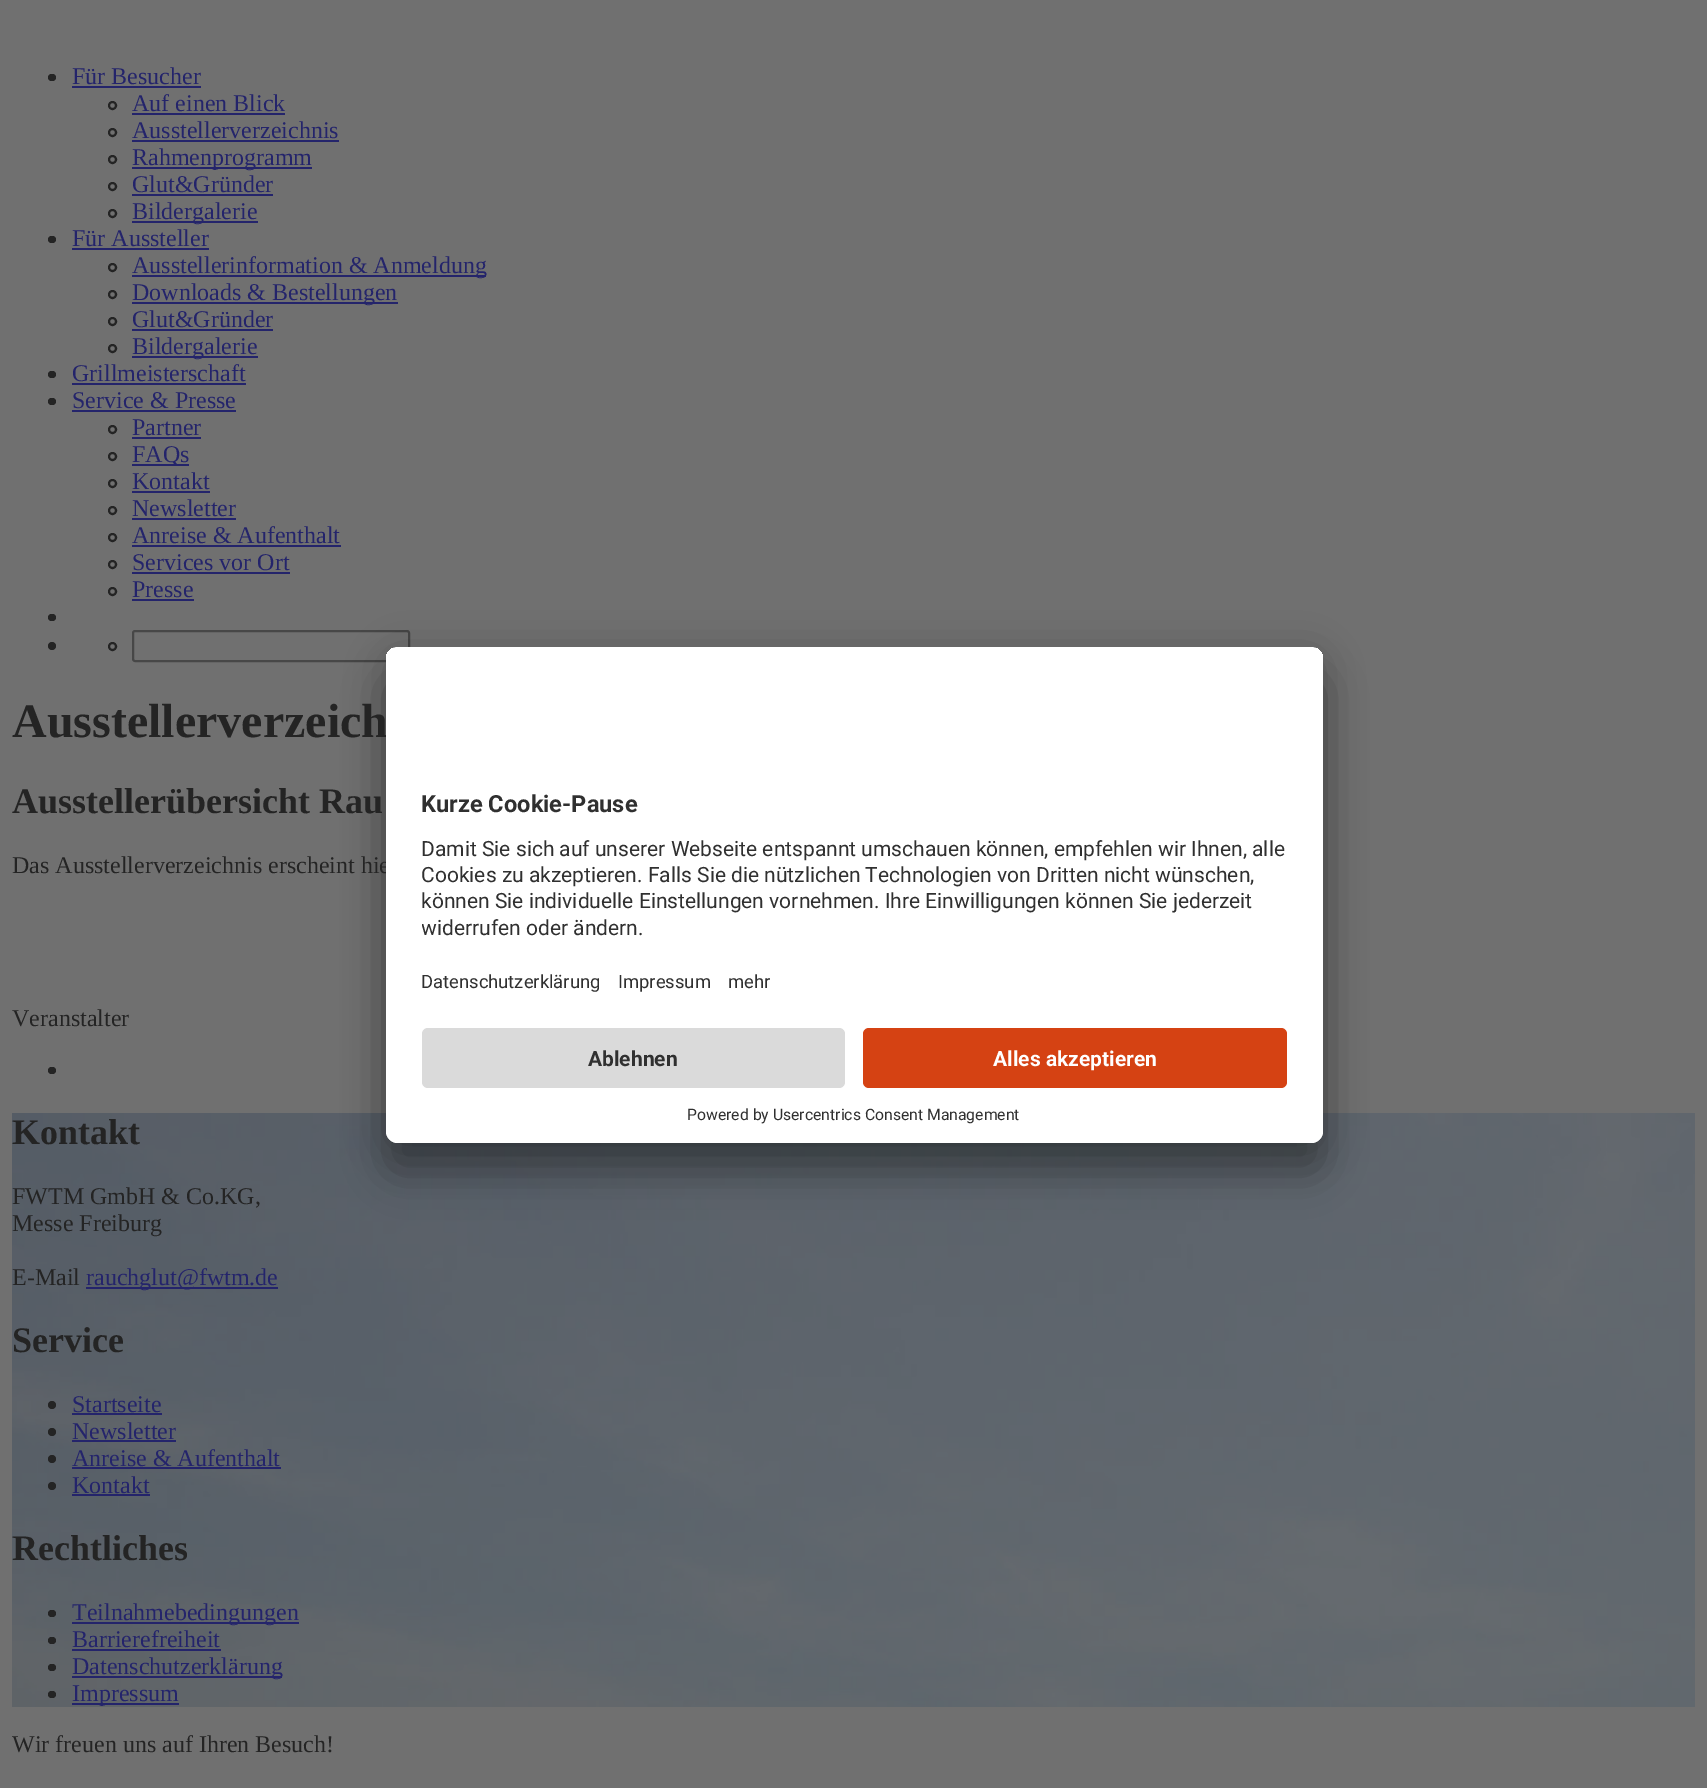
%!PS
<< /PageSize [1707 1788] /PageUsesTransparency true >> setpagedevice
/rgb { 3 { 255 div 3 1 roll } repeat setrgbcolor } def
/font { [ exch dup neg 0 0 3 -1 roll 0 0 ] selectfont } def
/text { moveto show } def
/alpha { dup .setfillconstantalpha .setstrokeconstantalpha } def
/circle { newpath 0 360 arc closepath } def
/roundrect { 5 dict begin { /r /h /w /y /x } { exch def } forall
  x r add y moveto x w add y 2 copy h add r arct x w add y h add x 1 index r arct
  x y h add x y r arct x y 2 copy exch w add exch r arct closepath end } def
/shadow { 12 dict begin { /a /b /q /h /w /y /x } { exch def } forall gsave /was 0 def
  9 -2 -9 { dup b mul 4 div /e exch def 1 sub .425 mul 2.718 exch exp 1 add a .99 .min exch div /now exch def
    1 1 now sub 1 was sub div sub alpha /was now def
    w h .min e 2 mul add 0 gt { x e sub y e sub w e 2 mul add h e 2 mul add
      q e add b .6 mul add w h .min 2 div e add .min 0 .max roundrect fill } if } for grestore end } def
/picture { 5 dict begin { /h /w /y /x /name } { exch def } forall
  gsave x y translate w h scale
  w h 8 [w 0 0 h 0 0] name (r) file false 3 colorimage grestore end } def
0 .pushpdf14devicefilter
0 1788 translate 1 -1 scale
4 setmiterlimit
112 112 112 rgb
0 0 1707 1788 rectfill
36 36 36 rgb
48 74 8 7 3.5 roundrect fill
36 36 107 rgb
72 86 129 2 rectfill
36 36 36 rgb
2 setlinewidth
112.5 105.5 3.5 circle stroke
36 36 107 rgb
132 113 153 2 rectfill
36 36 36 rgb
112.5 132.5 3.5 circle stroke
36 36 107 rgb
132 140 207 2 rectfill
36 36 36 rgb
112.5 159.5 3.5 circle stroke
36 36 107 rgb
132 167 180 2 rectfill
36 36 36 rgb
112.5 186.5 3.5 circle stroke
36 36 107 rgb
132 194 141 2 rectfill
36 36 36 rgb
112.5 213.5 3.5 circle stroke
36 36 107 rgb
132 221 126 2 rectfill
36 36 36 rgb
48 236 8 7 3.5 roundrect fill
36 36 107 rgb
72 248 137 2 rectfill
36 36 36 rgb
112.5 267.5 3.5 circle stroke
36 36 107 rgb
132 275 354 2 rectfill
36 36 36 rgb
112.5 294.5 3.5 circle stroke
36 36 107 rgb
132 302 266 2 rectfill
36 36 36 rgb
112.5 321.5 3.5 circle stroke
36 36 107 rgb
132 329 141 2 rectfill
36 36 36 rgb
112.5 348.5 3.5 circle stroke
36 36 107 rgb
132 356 126 2 rectfill
36 36 36 rgb
48 371 8 7 3.5 roundrect fill
36 36 107 rgb
72 383 174 2 rectfill
36 36 36 rgb
48 398 8 7 3.5 roundrect fill
36 36 107 rgb
72 410 164 2 rectfill
36 36 36 rgb
112.5 429.5 3.5 circle stroke
36 36 107 rgb
132 437 69 2 rectfill
36 36 36 rgb
112.5 456.5 3.5 circle stroke
36 36 107 rgb
132 464 57 2 rectfill
36 36 36 rgb
112.5 483.5 3.5 circle stroke
36 36 107 rgb
132 491 78 2 rectfill
36 36 36 rgb
112.5 510.5 3.5 circle stroke
36 36 107 rgb
132 518 104 2 rectfill
36 36 36 rgb
112.5 537.5 3.5 circle stroke
36 36 107 rgb
132 545 209 2 rectfill
36 36 36 rgb
112.5 564.5 3.5 circle stroke
36 36 107 rgb
132 572 158 2 rectfill
36 36 36 rgb
112.5 591.5 3.5 circle stroke
36 36 107 rgb
132 599 62 2 rectfill
36 36 36 rgb
48 614 8 7 3.5 roundrect fill
52 646 4 circle fill
112.5 646.5 3.5 circle stroke
71 71 71 rgb
133 631 276 30 2 roundrect stroke
(img_01.rgb) 12 1113 1683 594 picture
0 0 0 rgb
386 677 937 496 12 21 0.3 shadow
386 654 937 497 12 19.5 0.22 shadow
36 36 36 rgb
48 1067 8 7 3.5 roundrect fill
36 36 107 rgb
86 1287 192 2 rectfill
36 36 36 rgb
52 1405 4 circle fill
36 36 107 rgb
72 1413 90 2 rectfill
36 36 36 rgb
52 1432 4 circle fill
36 36 107 rgb
72 1440 104 2 rectfill
36 36 36 rgb
52 1459 4 circle fill
36 36 107 rgb
72 1467 209 2 rectfill
36 36 36 rgb
52 1486 4 circle fill
36 36 107 rgb
72 1494 78 2 rectfill
36 36 36 rgb
48 1610 8 7 3.5 roundrect fill
36 36 107 rgb
72 1622 227 2 rectfill
36 36 36 rgb
48 1637 8 7 3.5 roundrect fill
36 36 107 rgb
72 1649 149 2 rectfill
36 36 36 rgb
48 1664 8 7 3.5 roundrect fill
36 36 107 rgb
72 1676 210 2 rectfill
36 36 36 rgb
48 1691 8 7 3.5 roundrect fill
36 36 107 rgb
72 1703 107 2 rectfill
/LiberationSerif-Regular 24 font
(Für Besucher) 72 84 text
(Auf einen Blick) 132 111 text
(Ausstellerverzeichnis) 132 138 text
(Rahmenprogramm) 132 165 text
(Glut&Gründer) 132 192 text
(Bildergalerie) 132 219 text
(Für Aussteller) 72 246 text
(Ausstellerinformation & Anmeldung) 132 273 text
(Downloads & Bestellungen) 132 300 text
(Glut&Gründer) 132 327 text
(Bildergalerie) 132 354 text
(Grillmeisterschaft) 72 381 text
(Service & Presse) 72 408 text
(Partner) 132 435 text
(FAQs) 132 462 text
(Kontakt) 132 489 text
(Newsletter) 132 516 text
(Anreise & Aufenthalt) 132 543 text
(Services vor Ort) 132 570 text
(Presse) 132 597 text
/LiberationSerif-Bold 48 font
36 36 36 rgb
(Ausstellerverzeich) 12 737 text
/LiberationSerif-Bold 36 font
(Ausstellerübersicht Rau) 12 813 text
/LiberationSerif-Regular 24 font
(Das Ausstellerverzeichnis erscheint hie) 12 873 text
255 255 255 rgb
386 647 937 496 12 roundrect fill
gsave
386 647 937 496 12 roundrect clip newpath
398 647 moveto 913 0 rlineto 6.5 0 12 5.5 12 12 rcurveto 0 357 rlineto -937 0 rlineto 0 -357 rlineto 0 -6.5 5.5 -12 12 -12 rcurveto closepath clip newpath
386 648 937 368 rectfill
grestore
/Roboto-Bold 23.6 font
48 48 48 rgb
(Kurze Cookie-Pause) 421 812 text
/Roboto-Regular 21 font
(Damit Sie sich auf unserer Webseite entspannt umschauen können, empfehlen wir Ihnen, alle) 421 856 text
(Cookies zu akzeptieren. Falls Sie die nützlichen Technologien von Dritten nicht wünschen,) 421 882 text
(können Sie individuelle Einstellungen vornehmen. Ihre Einwilligungen können Sie jederzeit) 421 908 text
gsave
422 831 865 117 rectclip
(widerrufen oder ändern.) 421 935 text
grestore
/Roboto-Regular 18.4 font
(Datenschutzerklärung) 421 988 text
(Impressum) 618 988 text
(mehr) 728 988 text
255 255 255 rgb
386 1016 moveto 937 0 rlineto 0 115 rlineto 0 6.5 -5.5 12 -12 12 rcurveto -913 0 rlineto -6.5 0 -12 -5.5 -12 -12 rcurveto closepath fill
218 218 218 rgb
422 1028 423 60 6 roundrect fill
/Roboto-Bold 21 font
48 48 48 rgb
(Ablehnen) 588 1066 text
213 66 19 rgb
863 1028 424 60 6 roundrect fill
255 255 255 rgb
(Alles akzeptieren) 993 1066 text
/Roboto-Regular 15.75 font
48 48 48 rgb
(Powered by Usercentrics Consent Management) 687 1120 text
/LiberationSerif-Regular 24 font
36 36 36 rgb
(Veranstalter) 12 1026 text
/LiberationSerif-Bold 36 font
(Kontakt) 12 1144 text
/LiberationSerif-Regular 24 font
(FWTM GmbH & Co.KG,) 12 1204 text
(Messe Freiburg) 12 1231 text
(E-Mail) 12 1285 text
36 36 107 rgb
(rauchglut@fwtm.de) 86 1285 text
/LiberationSerif-Bold 36 font
36 36 36 rgb
(Service) 12 1352 text
/LiberationSerif-Regular 24 font
36 36 107 rgb
(Startseite) 72 1412 text
(Newsletter) 72 1439 text
(Anreise & Aufenthalt) 72 1466 text
(Kontakt) 72 1493 text
/LiberationSerif-Bold 36 font
36 36 36 rgb
(Rechtliches) 12 1560 text
/LiberationSerif-Regular 24 font
36 36 107 rgb
(Teilnahmebedingungen) 72 1620 text
(Barrierefreiheit) 72 1647 text
(Datenschutzerklärung) 72 1674 text
(Impressum) 72 1701 text
36 36 36 rgb
(Wir freuen uns auf Ihren Besuch!) 12 1752 text
.poppdf14devicefilter showpage
